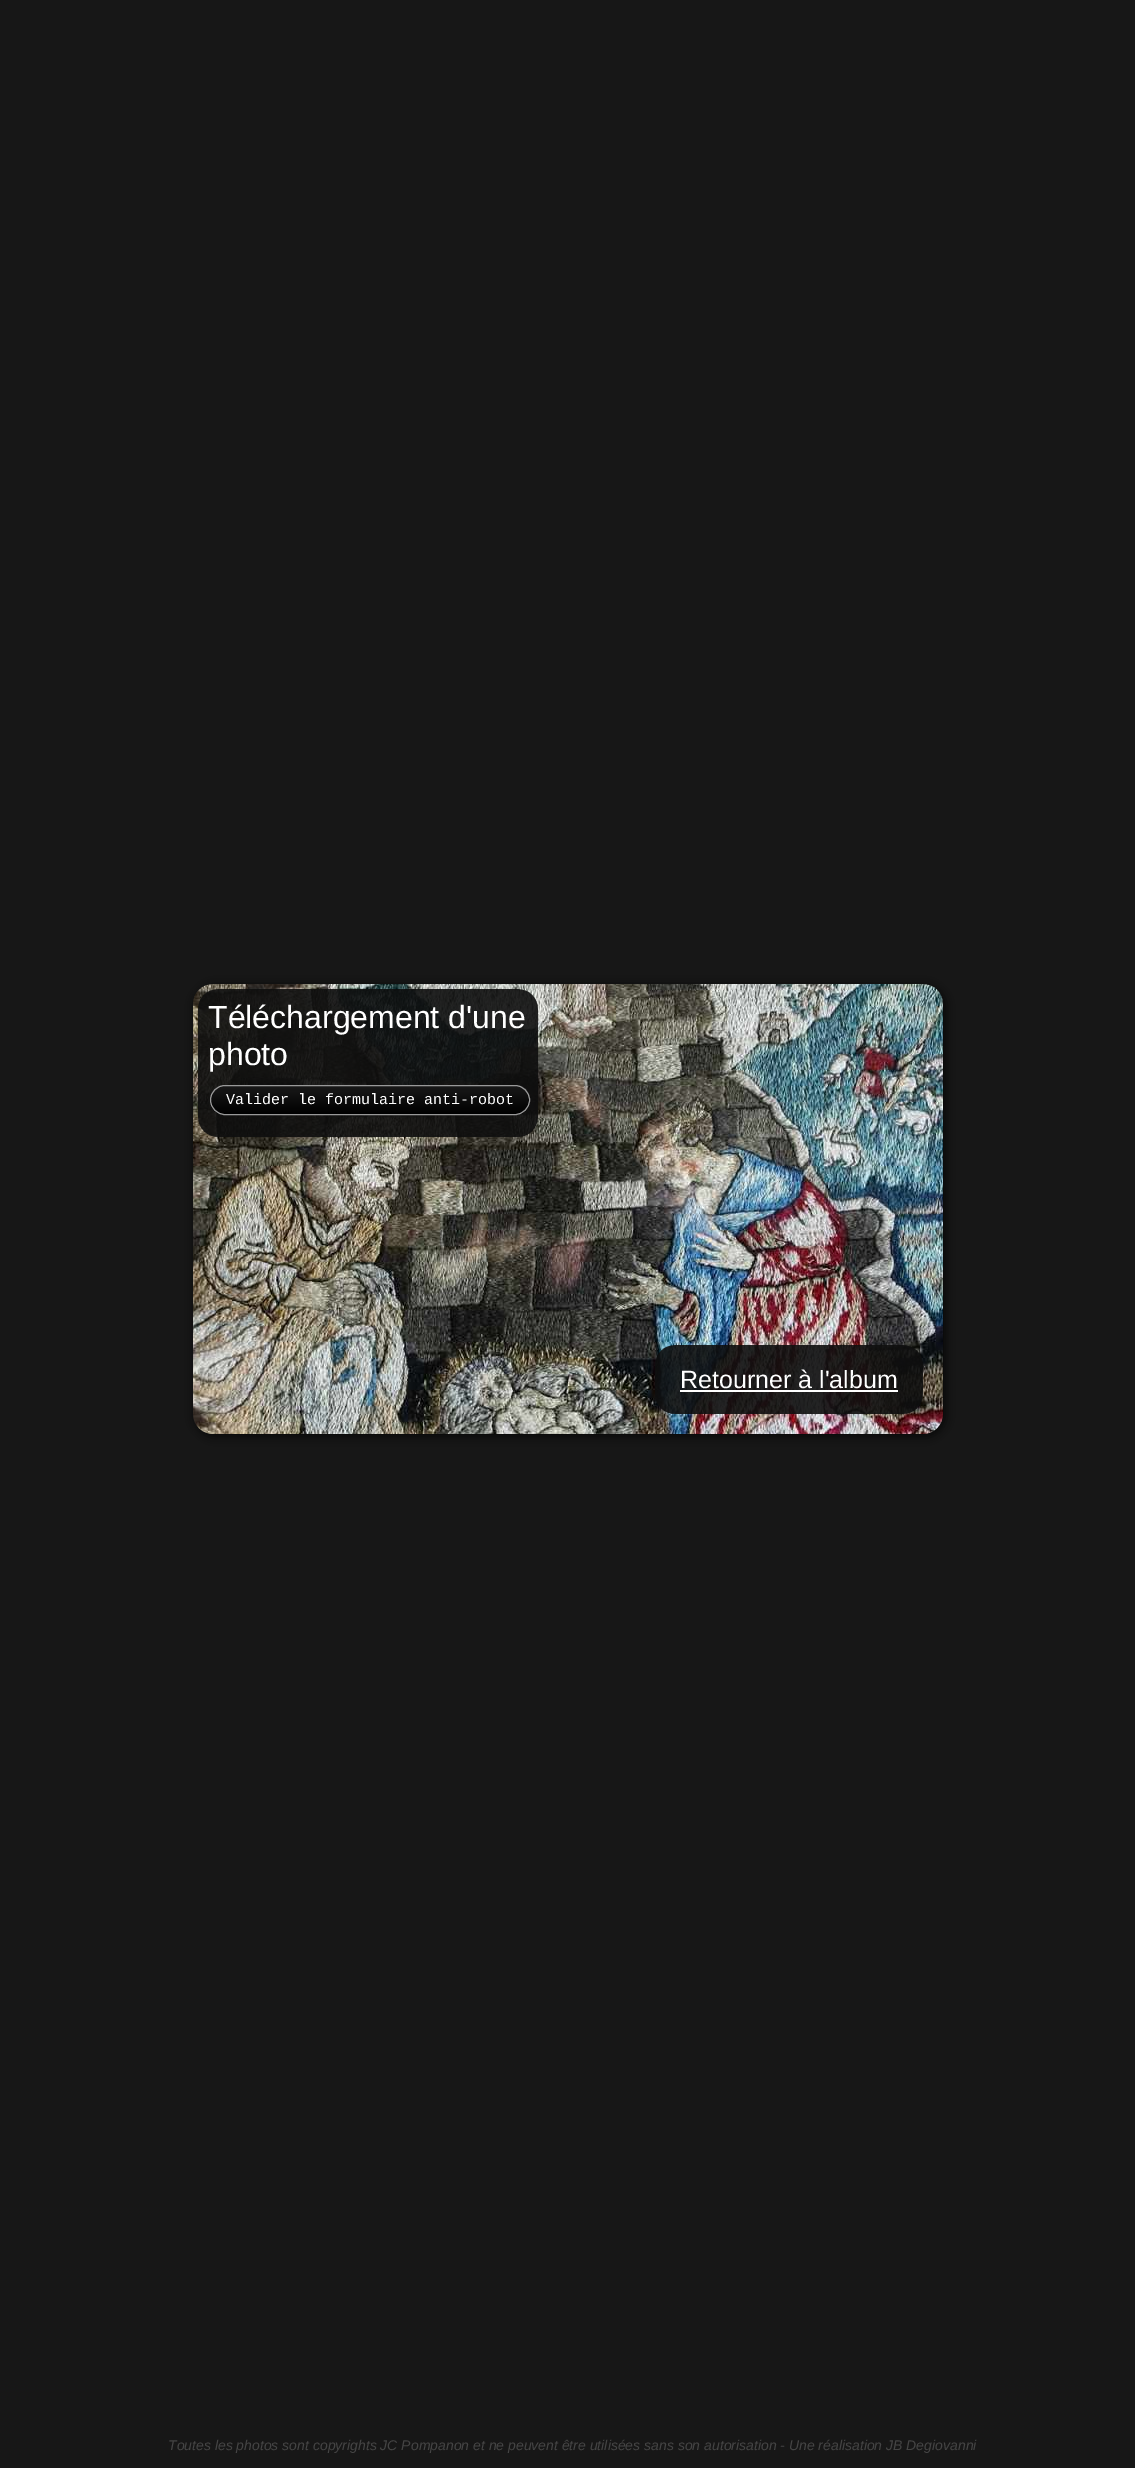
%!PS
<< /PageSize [1135 2468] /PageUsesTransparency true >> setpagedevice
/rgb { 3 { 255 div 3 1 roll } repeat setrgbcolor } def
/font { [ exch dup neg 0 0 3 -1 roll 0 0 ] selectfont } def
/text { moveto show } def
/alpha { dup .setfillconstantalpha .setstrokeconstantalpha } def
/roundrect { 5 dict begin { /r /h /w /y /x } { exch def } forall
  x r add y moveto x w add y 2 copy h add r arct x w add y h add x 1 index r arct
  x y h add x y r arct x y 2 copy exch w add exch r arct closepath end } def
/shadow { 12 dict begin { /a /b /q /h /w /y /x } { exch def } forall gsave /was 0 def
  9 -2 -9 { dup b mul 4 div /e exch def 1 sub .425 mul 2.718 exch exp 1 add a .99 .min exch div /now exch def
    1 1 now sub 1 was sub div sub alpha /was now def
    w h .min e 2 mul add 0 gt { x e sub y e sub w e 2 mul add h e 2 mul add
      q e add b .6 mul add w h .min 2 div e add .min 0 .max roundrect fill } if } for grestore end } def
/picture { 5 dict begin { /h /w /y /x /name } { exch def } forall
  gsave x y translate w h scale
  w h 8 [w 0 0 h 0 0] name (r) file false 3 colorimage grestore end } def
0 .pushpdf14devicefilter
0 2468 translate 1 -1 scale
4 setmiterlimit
23 23 23 rgb
0 0 1135 2468 rectfill
5 5 5 rgb
195 986 750 450 20 5 1 shadow
(img_01.rgb) 193 984 750 450 picture
(img_02.rgb) 198 989 340 148 picture
gsave
210 1085 320 30 15 roundrect clip newpath
gsave 210 1086 moveto 320 0 rlineto 0 28 rlineto -320 0 rlineto closepath clip newpath
<< /ShadingType 2 /ColorSpace /DeviceRGB /Coords [211 1086 211 1114] /Extend [true true] /Function << /FunctionType 2 /Domain [0 1] /C0 [0.098 0.098 0.098] /C1 [0 0 0] /N 1 >> >> shfill grestore
grestore
153 153 153 rgb
210.5 1085.5 319 29 14.5 roundrect stroke
(img_03.rgb) 655 1345 268 69 picture
255 255 255 rgb
680 1390 218 2 rectfill
/LiberationSans-Regular 32 font
(Téléchargement d'une) 208 1028 text
(photo) 208 1065 text
/LiberationMono-Regular 15 font
(Valider le formulaire anti-robot) 226 1104 text
/LiberationSans-Regular 25 font
(Retourner à l'album) 680 1388 text
/LiberationSans-Italic 14 font
68 68 68 rgb
(Toutes les photos sont copyrights JC Pompanon et ne peuvent être utilisées sans son autorisation - Une réalisation JB Degiovanni) 168 2450 text
.poppdf14devicefilter showpage
